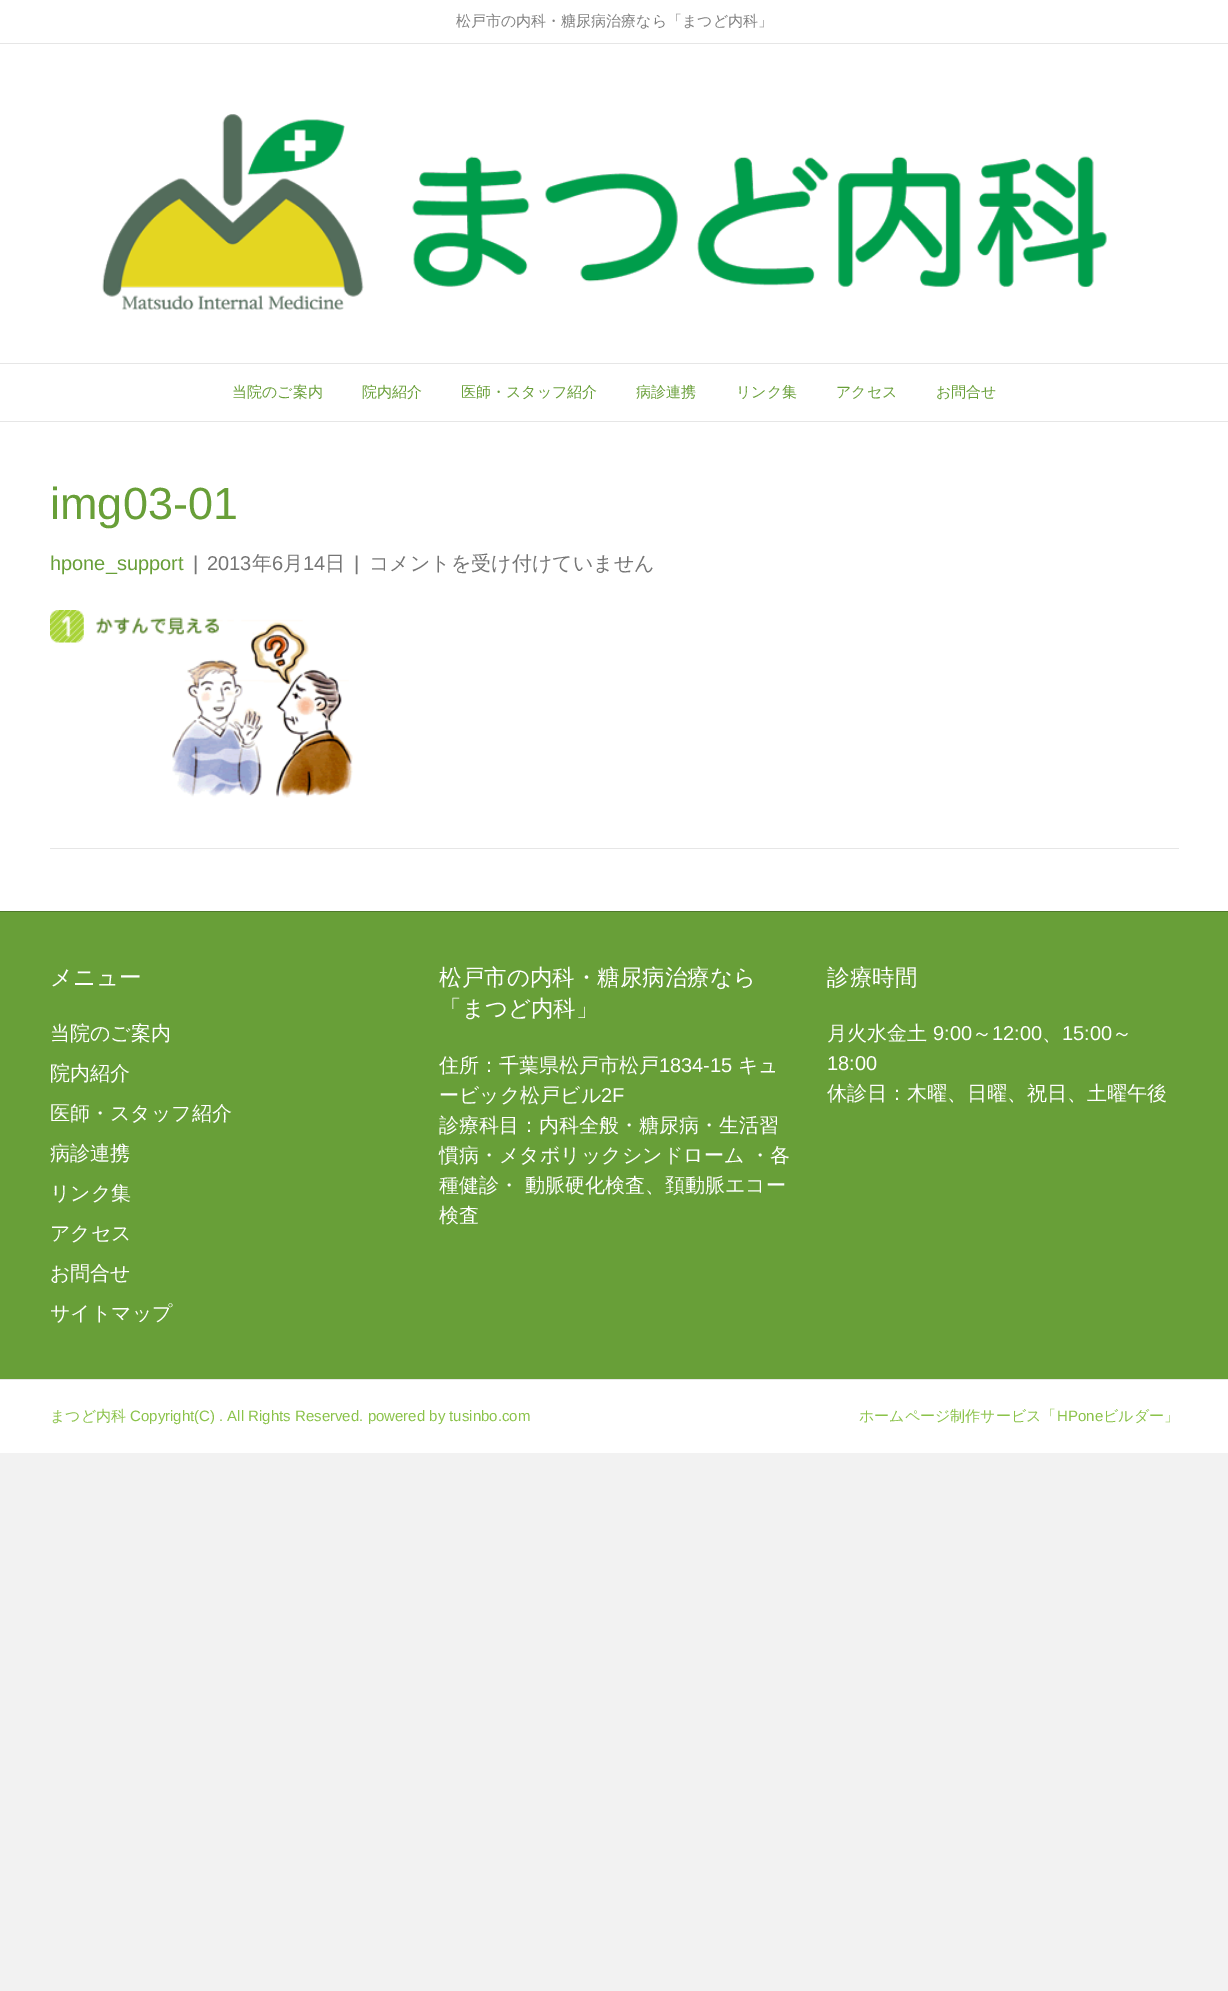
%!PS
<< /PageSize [1228 1991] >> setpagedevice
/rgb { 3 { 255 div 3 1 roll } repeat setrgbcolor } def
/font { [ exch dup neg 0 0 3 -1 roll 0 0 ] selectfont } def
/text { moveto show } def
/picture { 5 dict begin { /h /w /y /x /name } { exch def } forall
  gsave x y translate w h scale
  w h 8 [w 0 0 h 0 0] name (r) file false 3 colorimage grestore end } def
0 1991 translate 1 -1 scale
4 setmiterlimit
242 242 242 rgb
0 0 1228 1991 rectfill
255 255 255 rgb
0 0 1228 43 rectfill
230 230 230 rgb
0 43 1228 1 rectfill
255 255 255 rgb
0 44 1228 867 rectfill
(img_01.rgb) 102 114 1005 196 picture
230 230 230 rgb
0 363 1228 1 rectfill
0 421 1228 1 rectfill
(img_02.rgb) 50 610 303 188 picture
50 848 1129 1 rectfill
104 159 56 rgb
0 912 1228 467 rectfill
79 121 43 rgb
0 911 1228 1 rectfill
255 255 255 rgb
0 1380 1228 73 rectfill
230 230 230 rgb
0 1379 1228 1 rectfill
/WenQuanYiZenHei-Medium 15 font
128 128 128 rgb
(松戸市の内科・糖尿病治療なら「まつど内科」) 456 26 text
104 159 56 rgb
(当院のご案内) 232 397 text
(院内紹介) 362 397 text
(医師・スタッフ紹介) 461 397 text
(病診連携) 636 397 text
(リンク集) 736 397 text
(アクセス) 836 397 text
(お問合せ) 936 397 text
/LiberationSans-Regular 45 font
(img03-01) 50 519 text
/LiberationSans-Regular 20 font
(hpone_support) 50 570 text
117 117 117 rgb
(|) 193 570 text
(2013) 207 570 text
/WenQuanYiZenHei-Medium 20 font
(年) 252 570 text
/LiberationSans-Regular 20 font
(6) 272 570 text
/WenQuanYiZenHei-Medium 20 font
(月) 283 570 text
/LiberationSans-Regular 20 font
(14) 303 570 text
/WenQuanYiZenHei-Medium 20 font
(日) 325 570 text
/LiberationSans-Regular 20 font
(|) 354 570 text
/WenQuanYiZenHei-Medium 20 font
(コメントを受け付けていません) 369 570 text
/WenQuanYiZenHei-Medium 22.5 font
255 255 255 rgb
(メニュー) 50 985 text
/WenQuanYiZenHei-Medium 20 font
(当院のご案内) 50 1040 text
(院内紹介) 50 1080 text
(医師・スタッフ紹介) 50 1120 text
(病診連携) 50 1160 text
(リンク集) 50 1200 text
(アクセス) 50 1240 text
(お問合せ) 50 1280 text
(サイトマップ) 50 1320 text
/WenQuanYiZenHei-Medium 22.5 font
(松戸市の内科・糖尿病治療なら) 439 985 text
(「まつど内科」) 439 1016 text
/WenQuanYiZenHei-Medium 20 font
(住所：千葉県松戸市松戸) 439 1072 text
/LiberationSans-Regular 20 font
(1834-15) 659 1072 text
/WenQuanYiZenHei-Medium 20 font
(キュ) 738 1072 text
(ービック松戸ビル) 439 1102 text
/LiberationSans-Regular 20 font
(2F) 601 1102 text
/WenQuanYiZenHei-Medium 20 font
(診療科目：内科全般・糖尿病・生活習) 439 1132 text
(慣病・メタボリックシンドローム ・各) 439 1162 text
(種健診・ 動脈硬化検査、頚動脈エコー) 439 1192 text
(検査) 439 1222 text
/WenQuanYiZenHei-Medium 22.5 font
(診療時間) 827 985 text
/WenQuanYiZenHei-Medium 20 font
(月火水金土) 827 1040 text
/LiberationSans-Regular 20 font
(9:00) 933 1040 text
/WenQuanYiZenHei-Medium 20 font
(～) 972 1040 text
/LiberationSans-Regular 20 font
(12:00) 992 1040 text
(15:00) 1062 1040 text
/WenQuanYiZenHei-Medium 20 font
(～) 1112 1040 text
(、) 1042 1040 text
/LiberationSans-Regular 20 font
(18:00) 827 1070 text
/WenQuanYiZenHei-Medium 20 font
(休診日：木曜、日曜、祝日、土曜午後) 827 1100 text
/WenQuanYiZenHei-Medium 15 font
139 195 74 rgb
(まつど内科) 50 1421 text
/LiberationSans-Regular 15 font
(Copyright\(C\) . All Rights Reserved. powered by tusinbo.com) 130 1421 text
/WenQuanYiZenHei-Medium 15 font
(ホームページ制作サービス「) 859 1421 text
/LiberationSans-Regular 15 font
(HPone) 1057 1421 text
/WenQuanYiZenHei-Medium 15 font
(ビルダー」) 1103 1421 text
showpage
